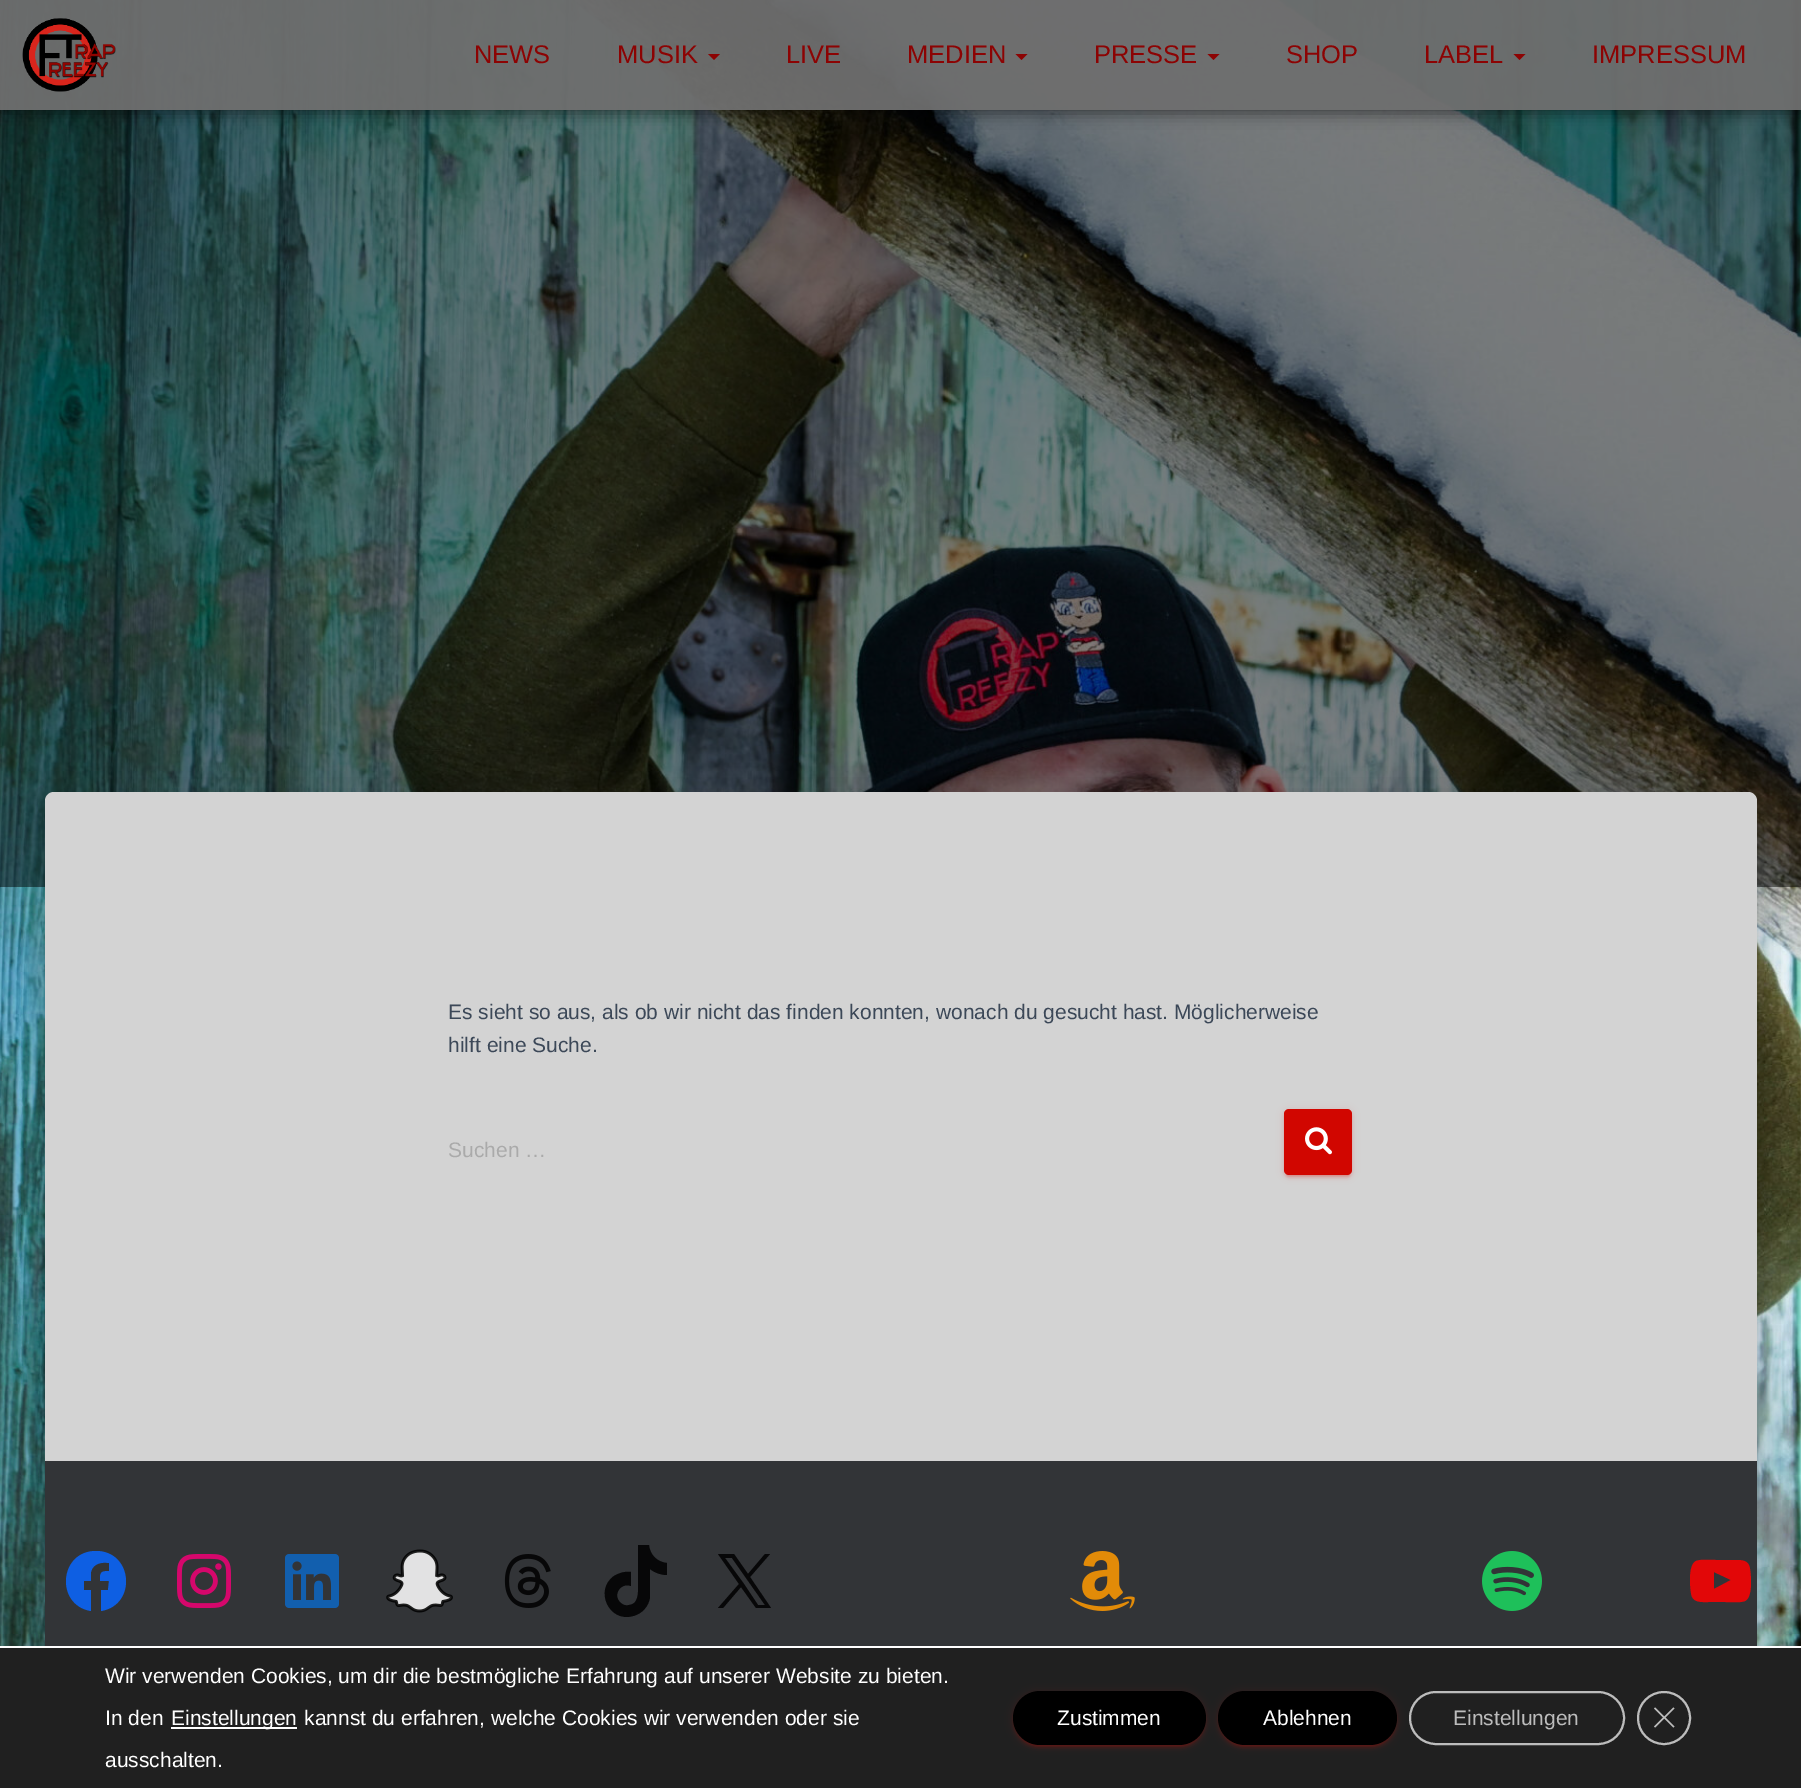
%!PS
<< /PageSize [1801 1788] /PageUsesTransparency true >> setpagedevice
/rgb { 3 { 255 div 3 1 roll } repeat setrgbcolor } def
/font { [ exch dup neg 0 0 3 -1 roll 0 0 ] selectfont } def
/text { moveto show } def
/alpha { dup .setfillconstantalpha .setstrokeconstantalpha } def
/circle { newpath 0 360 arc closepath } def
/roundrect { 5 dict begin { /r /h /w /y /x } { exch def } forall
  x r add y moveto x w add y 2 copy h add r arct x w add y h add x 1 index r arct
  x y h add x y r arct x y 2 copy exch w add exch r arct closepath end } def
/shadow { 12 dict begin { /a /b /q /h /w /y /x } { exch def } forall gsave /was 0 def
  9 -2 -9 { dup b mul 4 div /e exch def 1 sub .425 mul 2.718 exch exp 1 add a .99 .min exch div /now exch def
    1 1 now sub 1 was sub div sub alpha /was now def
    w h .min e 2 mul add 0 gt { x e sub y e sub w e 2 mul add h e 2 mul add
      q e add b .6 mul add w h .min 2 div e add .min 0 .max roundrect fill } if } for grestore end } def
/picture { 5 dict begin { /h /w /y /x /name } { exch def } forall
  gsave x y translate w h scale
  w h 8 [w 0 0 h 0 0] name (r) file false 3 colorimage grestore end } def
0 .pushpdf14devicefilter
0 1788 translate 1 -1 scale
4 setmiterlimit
255 255 255 rgb
0 0 1801 1788 rectfill
(img_01.rgb) 0 0 1801 1646 picture
0.5 alpha
0 0 0 rgb
0 0 1801 887 rectfill
gsave
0 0 moveto 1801 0 rlineto 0 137 rlineto -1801 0 rlineto closepath 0 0 moveto 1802 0 rlineto 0 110 rlineto -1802 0 rlineto closepath eoclip newpath
1 alpha
0 3 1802 110 0 7.5 0.5 shadow
grestore
0.95 alpha
110 110 110 rgb
0 0 1801 110 rectfill
1 alpha
(img_02.rgb) 22 18 94 74 picture
140 3 3 rgb
708 54 moveto 12 0 rlineto -6 6 rlineto closepath fill
1015.5 54 moveto 12 0 rlineto -6 6 rlineto closepath fill
1207.5 54 moveto 12 0 rlineto -6 6 rlineto closepath fill
1513.5 54 moveto 12 0 rlineto -6 6 rlineto closepath fill
0 0 0 rgb
53 812 1696 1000 1.5 7.5 0.2 shadow
38 794 1726 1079 17 22.5 0.12 shadow
42 813 1718 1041 12 18 0.14 shadow
211 211 211 rgb
54 792 moveto 1694 0 rlineto 5 0 9 4 9 9 rcurveto 0 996 rlineto -1712 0 rlineto 0 -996 rlineto 0 -5 4 -9 9 -9 rcurveto closepath fill
209 6 0 rgb
1284 1110 68 66 5 4 0.12 shadow
1287 1116 62 60 1.5 1 0.2 shadow
1284 1112 68 66 5 1.5 0.14 shadow
1284 1109 68 66 5 roundrect fill
(img_03.rgb) 1305 1127 27 28 picture
50 52 55 rgb
45 1461 1712 185 rectfill
14 95 227 rgb
96 1551 moveto -37 0 -41 54 -5 60 rcurveto 0 -21 rlineto -7 0 rlineto 0 -9 rlineto 7 0 rlineto 0 -9 rlineto 2 -9 11 -10 18 -9 rcurveto 0 8 rlineto -9 0 -9 2 -9 10 rcurveto 9 0 rlineto -1 9 rlineto -7 0 rlineto 0 21 rlineto 36 -6 32 -60 -5 -60 rcurveto closepath fill
(img_04.rgb) 177 1554 54 54 picture
(img_05.rgb) 285 1554 54 54 picture
(img_06.rgb) 386 1549 67 64 picture
(img_07.rgb) 504 1554 47 54 picture
7 7 8 rgb
638 1545 moveto 11 0 rlineto 1 10 8 17 18 18 rcurveto 0 12 rlineto -6 0 -12 -2 -17 -6 rcurveto 0 28 rlineto -1 9 -8 17 -17 19 rcurveto -24 7 -39 -26 -19 -40 rcurveto 5 -3 11 -5 17 -4 rcurveto 0 14 rlineto -11 -4 -19 10 -10 17 rcurveto 2 2 5 3 8 2 rcurveto 11 -1 9 -16 9 -24 rcurveto closepath fill
750 1577 moveto 20 -23 rlineto -5 0 rlineto -17 20 rlineto -14 -20 rlineto -16 0 rlineto 21 30 rlineto -21 24 rlineto 5 0 rlineto 18 -21 rlineto 15 21 rlineto 15 0 rlineto closepath 744 1584 moveto -19 -26 rlineto 7 0 rlineto 33 47 rlineto -7 0 rlineto closepath fill
(img_08.rgb) 1070 1551 65 60 picture
(img_09.rgb) 1482 1551 60 60 picture
226 7 8 rgb
1750 1569 moveto -1 -9 -8 -9 -15 -9 rcurveto -19 0 rlineto -5 0 -15 -1 -20 1 rcurveto -8 4 -6 25 -5 32 rcurveto 1 10 10 9 18 9 rcurveto 16 0 rlineto 5 0 15 1 20 -1 rcurveto 8 -4 6 -25 5 -32 rcurveto closepath 1714 1589 moveto 0 -17 rlineto 17 8 rlineto closepath fill
32 32 32 rgb
0 1648 1801 140 rectfill
255 255 255 rgb
0 1646 1801 2 rectfill
171 1727 126 2 rectfill
209 6 0 rgb
1013 1692 193 54 27 4 0.12 shadow
1016 1698 187 48 24 1 0.2 shadow
1013 1694 193 54 27 1.5 0.14 shadow
0 0 0 rgb
1013 1691 193 54 27 roundrect fill
209 6 0 rgb
1218 1692 179 54 27 4 0.12 shadow
1221 1698 173 48 24 1 0.2 shadow
1218 1694 179 54 27 1.5 0.14 shadow
0 0 0 rgb
1218 1691 179 54 27 roundrect fill
188 188 188 rgb
2 setlinewidth
1410 1692 214 52 26 roundrect stroke
1664 1718 26 circle stroke
1673.5 1707.5 moveto 1 1 rlineto -19.5 19 rlineto -1 -1 rlineto closepath fill
1654 1708.5 moveto 1 -1 rlineto 19.5 19 rlineto -1 1 rlineto closepath fill
/LiberationSans-Regular 25.5 font
140 3 3 rgb
(NEWS) 474 63 text
(MUSIK) 617 63 text
(LIVE) 786 63 text
(MEDIEN) 907 63 text
(PRESSE) 1094 63 text
(SHOP) 1286 63 text
(LABEL) 1424 63 text
(IMPRESSUM) 1592 63 text
/LiberationSans-Regular 21 font
60 72 88 rgb
(Es sieht so aus, als ob wir nicht das finden konnten, wonach du gesucht hast. Möglicherweise) 448 1019 text
(hilft eine Suche.) 448 1052 text
170 170 170 rgb
(Suchen …) 448 1157 text
255 255 255 rgb
(Wir verwenden Cookies, um dir die bestmögliche Erfahrung auf unserer Website zu bieten.) 105 1683 text
(In den) 105 1725 text
(Einstellungen) 171 1725 text
(kannst du erfahren, welche Cookies wir verwenden oder sie) 304 1725 text
(ausschalten.) 105 1767 text
(Zustimmen) 1057 1725 text
(Ablehnen) 1263 1725 text
188 188 188 rgb
(Einstellungen) 1453 1725 text
.poppdf14devicefilter showpage
